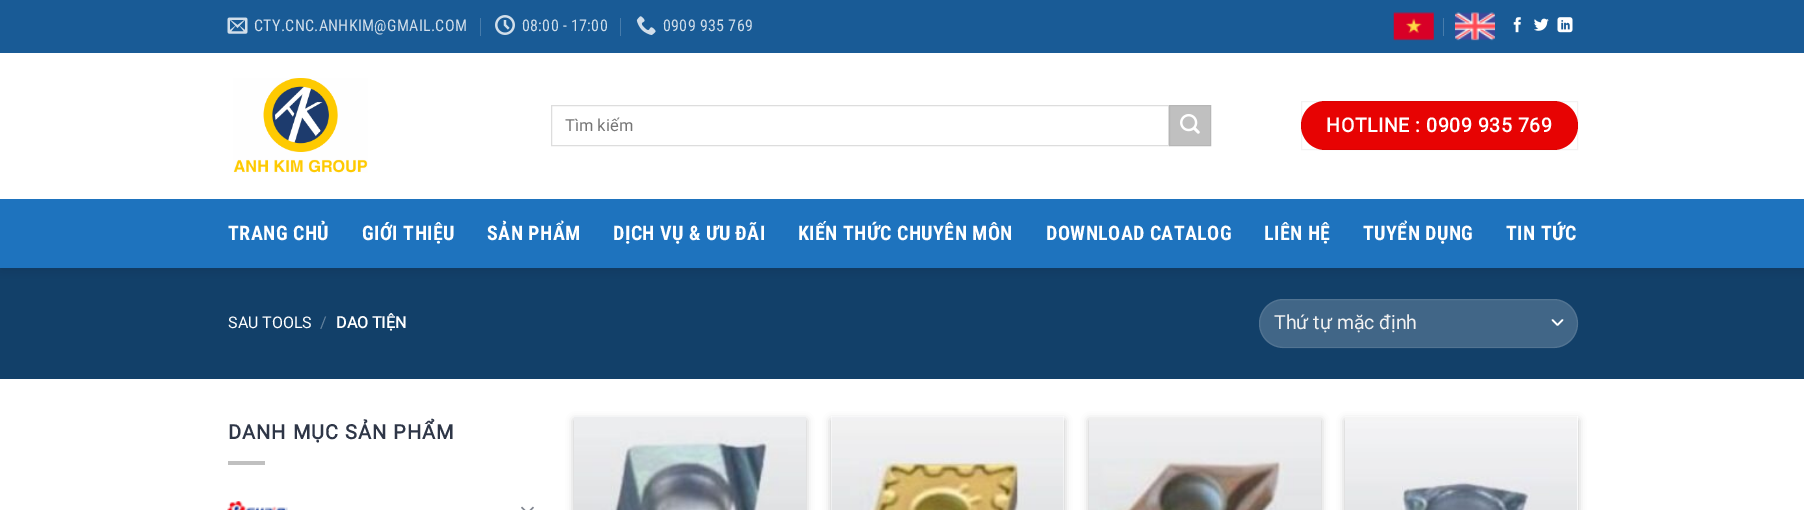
%!PS
<< /PageSize [1804 510] /PageUsesTransparency true >> setpagedevice
/rgb { 3 { 255 div 3 1 roll } repeat setrgbcolor } def
/font { [ exch dup neg 0 0 3 -1 roll 0 0 ] selectfont } def
/text { moveto show } def
/alpha { dup .setfillconstantalpha .setstrokeconstantalpha } def
/roundrect { 5 dict begin { /r /h /w /y /x } { exch def } forall
  x r add y moveto x w add y 2 copy h add r arct x w add y h add x 1 index r arct
  x y h add x y r arct x y 2 copy exch w add exch r arct closepath end } def
/shadow { 12 dict begin { /a /b /q /h /w /y /x } { exch def } forall gsave /was 0 def
  9 -2 -9 { dup b mul 4 div /e exch def 1 sub .425 mul 2.718 exch exp 1 add a .99 .min exch div /now exch def
    1 1 now sub 1 was sub div sub alpha /was now def
    w h .min e 2 mul add 0 gt { x e sub y e sub w e 2 mul add h e 2 mul add
      q e add b .6 mul add w h .min 2 div e add .min 0 .max roundrect fill } if } for grestore end } def
/picture { 5 dict begin { /h /w /y /x /name } { exch def } forall
  gsave x y translate w h scale
  w h 8 [w 0 0 h 0 0] name (r) file false 3 colorimage grestore end } def
0 .pushpdf14devicefilter
0 510 translate 1 -1 scale
4 setmiterlimit
255 255 255 rgb
0 0 1804 510 rectfill
18 64 105 rgb
0 268 1804 111 rectfill
0 0 0 rgb
1 1 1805 268 0 6 0.15 shadow
25 91 150 rgb
0 0 1804 53 rectfill
(img_01.rgb) 227 17 21 17 picture
71 124 171 rgb
480 18 1 18 rectfill
(img_02.rgb) 495 15 20 20 picture
620 18 1 18 rectfill
(img_03.rgb) 636 16 20 19 picture
(img_04.rgb) 1393 12 41 29 picture
1443 18 1 18 rectfill
(img_05.rgb) 1455 12 40 29 picture
(img_06.rgb) 1513 17 8 16 picture
(img_07.rgb) 1534 18 15 13 picture
(img_08.rgb) 1557 17 16 16 picture
255 255 255 rgb
0 53 1804 146 rectfill
(img_09.rgb) 233 78 135 95 picture
221 221 221 rgb
551.5 105.5 617 40 rectstroke
192 192 192 rgb
1169.5 105.5 moveto 41 0 rlineto 0 40 rlineto -41 0 rlineto closepath gsave fill grestore
182 182 182 rgb
stroke
(img_10.rgb) 1180 114 20 20 picture
231 3 3 rgb
1301 101 277 49 24.5 roundrect fill
0.05 alpha
0 0 0 rgb
1301.5 101.5 276 48 rectstroke
1 alpha
30 115 190 rgb
0 199 1804 69 rectfill
65 102 135 rgb
1259 299 319 49 24.5 roundrect fill
255 255 255 rgb
1.7 setlinewidth
1 setlinecap
1 setlinejoin
1552.5 320 moveto 5 5 rlineto 5 -5 rlineto stroke
0.09 alpha
1 setlinewidth
0 setlinecap
0 setlinejoin
1259.5 299.5 318 48 24 roundrect stroke
1 alpha
192 192 192 rgb
228 461 37 4 rectfill
(img_11.rgb) 227 501 61 9 picture
(img_12.rgb) 521 506 13 4 picture
0 0 0 rgb
574 420 232 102 0 4 0.23 shadow
255 255 255 rgb
574 416 232 1 rectfill
(img_13.rgb) 574 416 232 94 picture
0 0 0 rgb
831 420 233 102 0 4 0.23 shadow
255 255 255 rgb
831 416 233 94 rectfill
(img_14.rgb) 831 416 233 94 picture
0 0 0 rgb
1089 420 232 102 0 4 0.23 shadow
255 255 255 rgb
1089 416 232 1 rectfill
(img_15.rgb) 1089 416 232 94 picture
0 0 0 rgb
1345 420 233 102 0 4 0.23 shadow
255 255 255 rgb
1345 416 233 94 rectfill
(img_16.rgb) 1345 416 233 94 picture
/RobotoCondensed-Regular 16 font
209 222 234 rgb
254 31 moveto 0.3 0 (CTY.CNC.ANHKIM@GMAIL.COM) ashow
522 31 moveto 0.3 0 (08:00 - 17:00) ashow
663 31 moveto 0.3 0 (0909 935 769) ashow
/Roboto-Regular 16.5 font
117 117 117 rgb
(Tìm kiếm) 565 131 text
/Roboto-Bold 19.5 font
255 255 255 rgb
1326 132 moveto 0.6 0 (HOTLINE : 0909 935 769) ashow
/RobotoCondensed-Bold 20 font
228 240 moveto 0.4 0 (TRANG CHỦ) ashow
362 240 moveto 0.4 0 (GIỚI THIỆU) ashow
487 240 moveto 0.4 0 (SẢN PHẨM) ashow
613 240 moveto 0.4 0 (DỊCH VỤ & ƯU ĐÃI) ashow
798 240 moveto 0.4 0 (KIẾN THỨC CHUYÊN MÔN) ashow
1046 240 moveto 0.4 0 (DOWNLOAD CATALOG) ashow
1264 240 moveto 0.4 0 (LIÊN HỆ) ashow
1363 240 moveto 0.4 0 (TUYỂN DỤNG) ashow
1506 240 moveto 0.4 0 (TIN TỨC) ashow
/Roboto-Regular 16 font
(SAU TOOLS) 228 328 text
101 131 158 rgb
(/) 320 328 text
/Roboto-Bold 16 font
255 255 255 rgb
(DAO TIỆN) 336 328 text
/Roboto-Regular 19.5 font
241 241 241 rgb
(Thứ tự mặc định) 1274 329 text
/Roboto-Bold 20 font
46 54 71 rgb
228 439 moveto 1 0 (DANH MỤC SẢN PHẨM) ashow
.poppdf14devicefilter showpage
